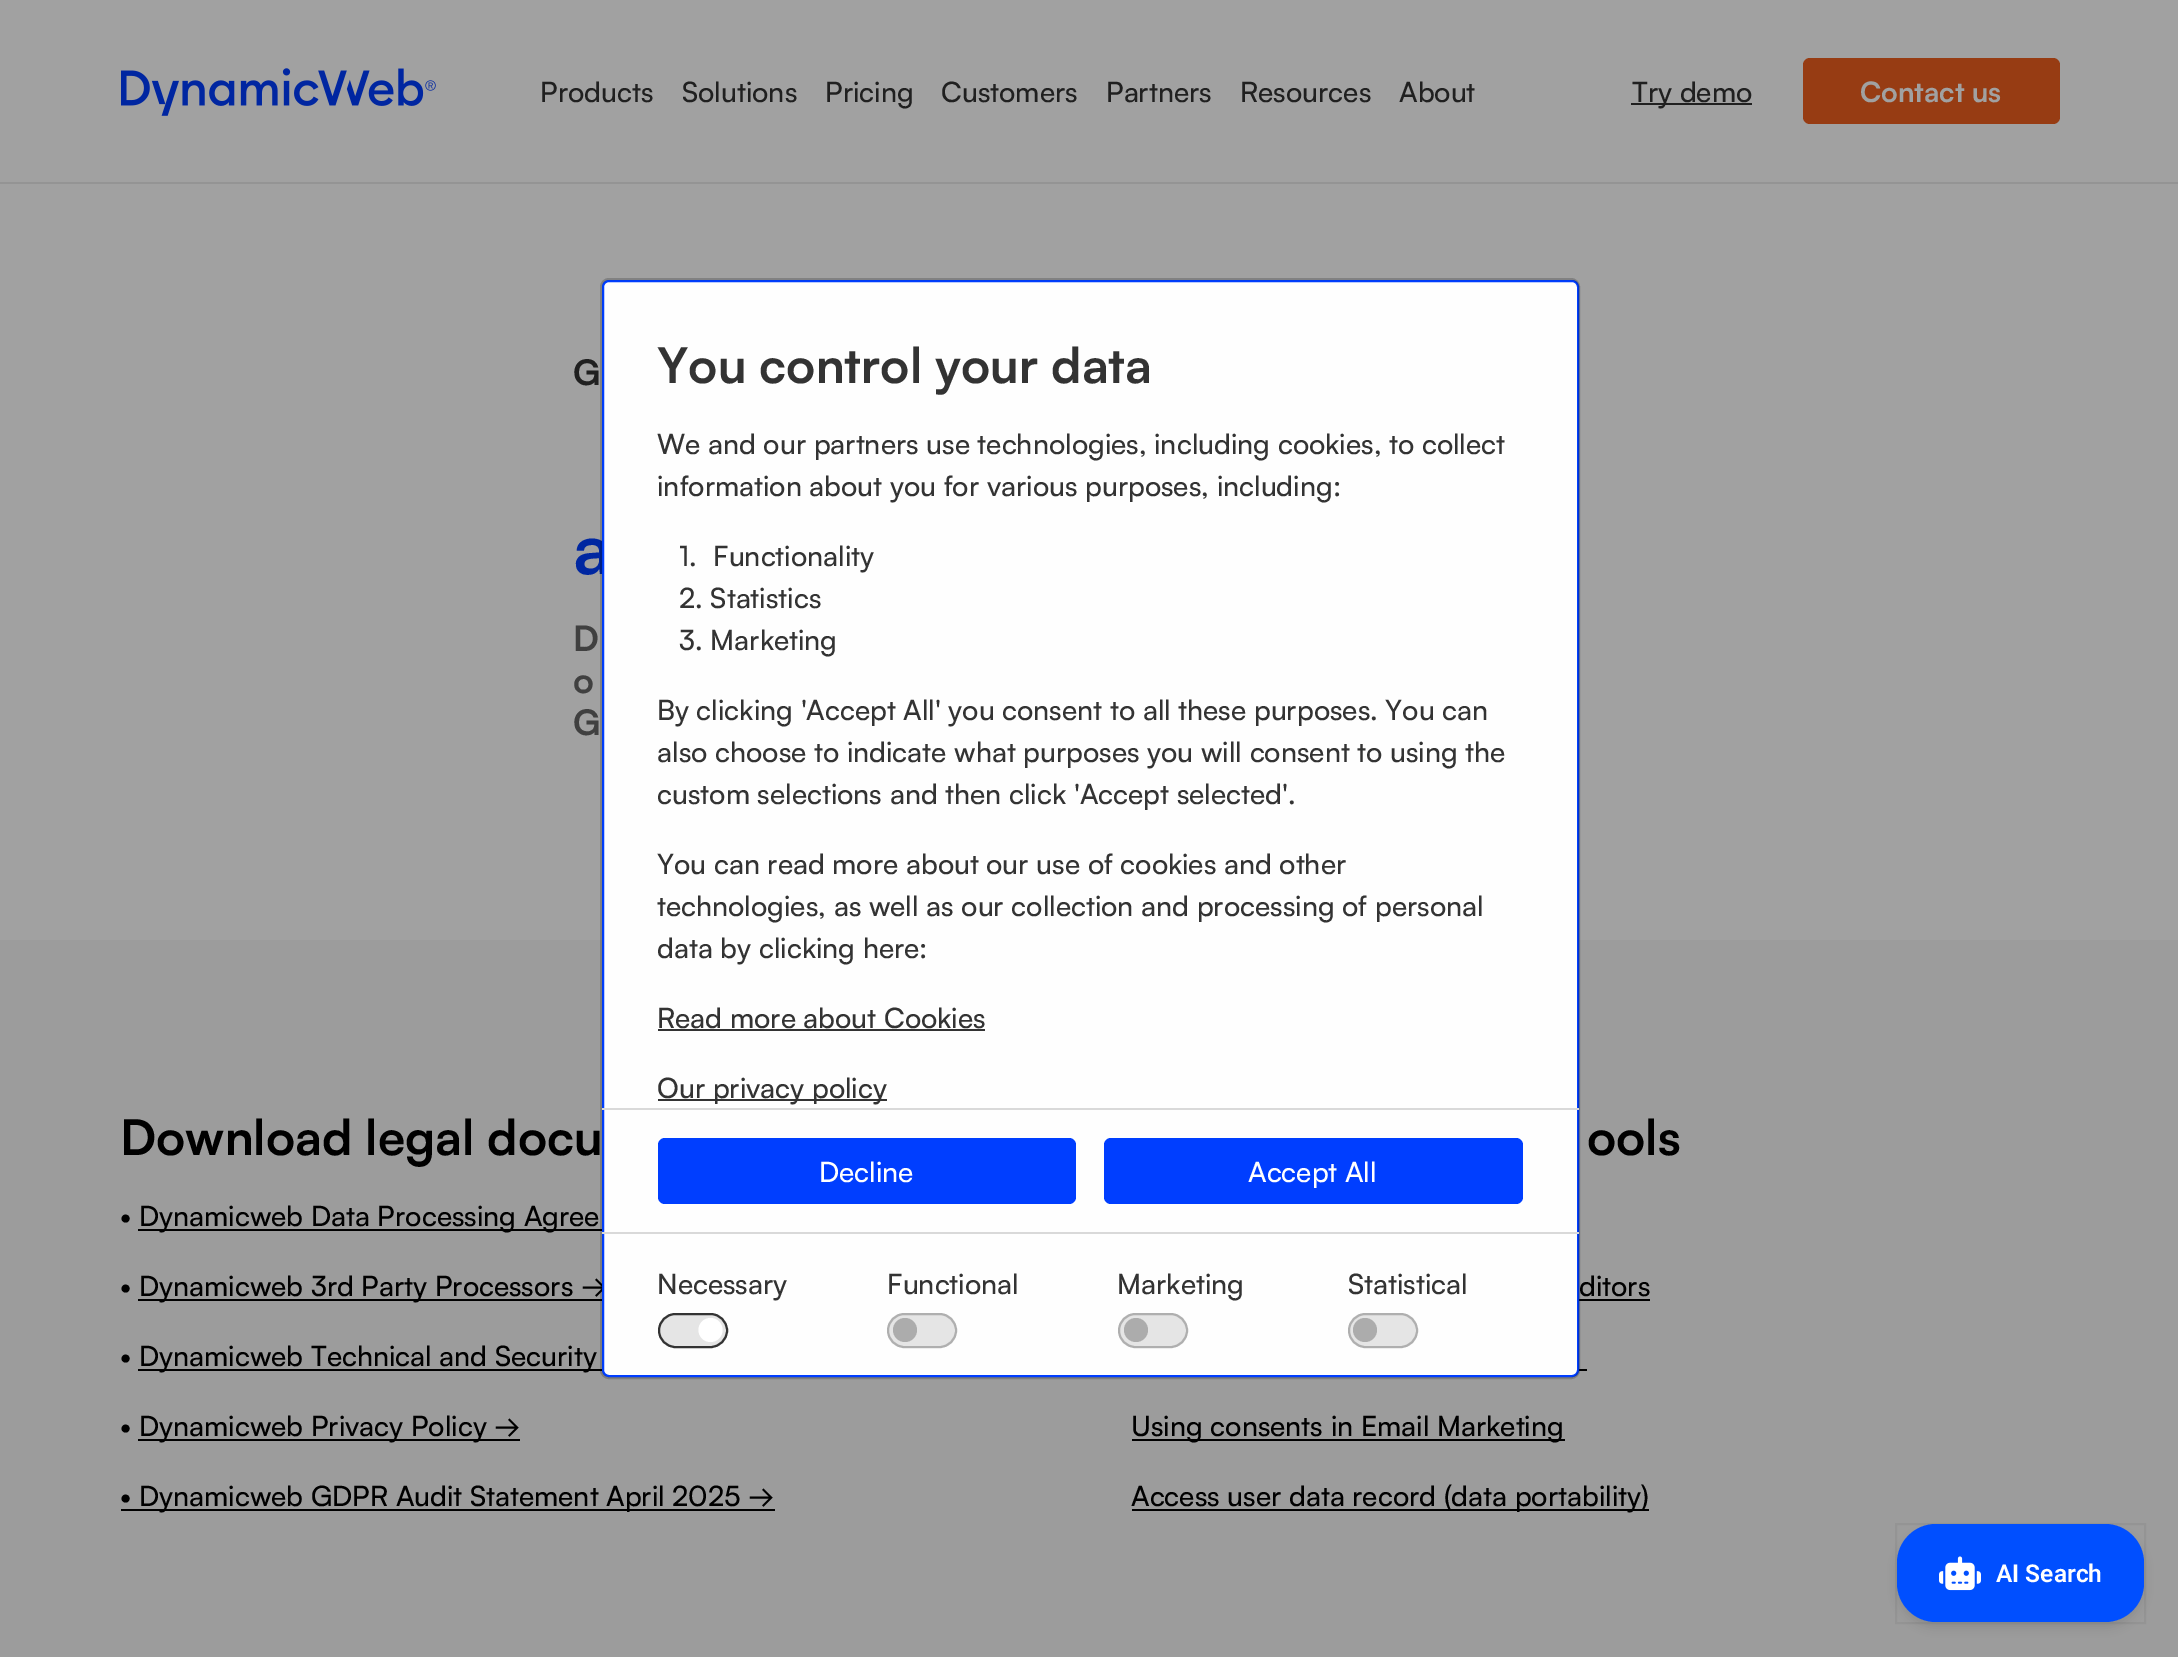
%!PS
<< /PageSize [2178 1657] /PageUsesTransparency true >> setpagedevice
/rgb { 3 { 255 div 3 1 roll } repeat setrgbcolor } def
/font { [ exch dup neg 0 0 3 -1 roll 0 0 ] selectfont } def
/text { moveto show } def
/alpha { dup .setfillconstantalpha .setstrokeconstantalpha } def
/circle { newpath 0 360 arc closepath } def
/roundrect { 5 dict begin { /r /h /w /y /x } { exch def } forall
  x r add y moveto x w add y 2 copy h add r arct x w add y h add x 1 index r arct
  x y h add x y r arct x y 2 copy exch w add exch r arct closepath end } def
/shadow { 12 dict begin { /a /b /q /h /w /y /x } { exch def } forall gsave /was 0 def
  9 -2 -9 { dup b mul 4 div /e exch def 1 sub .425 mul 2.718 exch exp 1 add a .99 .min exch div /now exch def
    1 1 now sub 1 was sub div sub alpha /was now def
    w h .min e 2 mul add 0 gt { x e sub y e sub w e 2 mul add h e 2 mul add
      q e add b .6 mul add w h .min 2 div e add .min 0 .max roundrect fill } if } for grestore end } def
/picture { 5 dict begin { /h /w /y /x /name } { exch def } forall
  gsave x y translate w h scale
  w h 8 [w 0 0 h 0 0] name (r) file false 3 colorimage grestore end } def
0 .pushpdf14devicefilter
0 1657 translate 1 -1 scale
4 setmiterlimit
161 161 161 rgb
0 0 2178 1657 rectfill
148 148 148 rgb
0 182 2178 2 rectfill
(img_01.rgb) 121 68 315 48 picture
32 32 32 rgb
1631 103 121 2 rectfill
151 60 19 rgb
1803 58 257 66 7 roundrect fill
156 156 156 rgb
0 940 2178 717 rectfill
0 0 0 rgb
138 1229 464 2 rectfill
138 1299 469 2 rectfill
138 1369 465 2 rectfill
138 1439 382 2 rectfill
121 1509 654 2 rectfill
1579 1299 71 2 rectfill
1578 1369 9 2 rectfill
1132 1439 433 2 rectfill
1132 1509 517 2 rectfill
1897 1530 247 98 39 4.5 0.1 shadow
0.05 alpha
2 setlinewidth
1896 1524 249 99 rectstroke
1 alpha
0 79 255 rgb
1897 1524 247 98 39 roundrect fill
(img_02.rgb) 1939 1556 42 35 picture
/Satoshi-Medium 28 font
32 32 32 rgb
(Products) 540 102 text
(Solutions) 682 102 text
(Pricing) 825 102 text
(Customers) 941 102 text
(Partners) 1106 102 text
(Resources) 1240 102 text
(About) 1399 102 text
(Try demo) 1632 102 text
/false-Bold 28 font
161 161 161 rgb
(Contact us) 1860 102 text
/false-Bold 35 font
32 32 32 rgb
(G) 573 385 text
/false-Bold 70 font
0 39 161 rgb
(a) 573 574 text
/false-Bold 35 font
64 64 64 rgb
(D) 573 651 text
(o) 573 693 text
(G) 573 735 text
/false-Bold 49 font
0 0 0 rgb
(Download legal docu) 120 1155 text
/Satoshi-Medium 28 font
(•) 120 1226 text
(Dynamicweb Data Processing Agreem) 139 1226 text
(•) 120 1296 text
(Dynamicweb 3rd Party Processors →) 139 1296 text
254 254 254 rgb
603 281 975 1095 6 roundrect gsave fill grestore
0 62 255 rgb
stroke
0 0 0 rgb
(•) 120 1366 text
(Dynamicweb Technical and Security) 139 1366 text
(•) 120 1436 text
(Dynamicweb Privacy Policy →) 139 1436 text
(• Dynamicweb GDPR Audit Statement April 2025 →) 120 1506 text
/false-Bold 49 font
(ools) 1587 1155 text
/Satoshi-Medium 28 font
(ditors) 1579 1296 text
0.2 alpha
601 279 978 1099 8 roundrect stroke
1 alpha
51 51 51 rgb
658 1099 229 2 rectfill
(Our privacy policy) 657 1098 text
(Read more about Cookies) 657 1028 text
658 1029 327 2 rectfill
(data by clicking here:) 657 958 text
(technologies, as well as our collection and processing of personal) 657 916 text
(You can read more about our use of cookies and other) 657 874 text
(custom selections and then click 'Accept selected'.) 657 804 text
(also choose to indicate what purposes you will consent to using the) 657 762 text
(By clicking 'Accept All' you consent to all these purposes. You can) 657 720 text
(3. Marketing) 679 650 text
(2. Statistics) 679 608 text
(1.) 679 566 text
(Functionality) 713 566 text
(information about you for various purposes, including:) 657 496 text
(We and our partners use technologies, including cookies, to collect) 657 454 text
/false-Bold 49 font
(You control your data) 657 383 text
/Satoshi-Medium 28 font
(Statistical) 1348 1294 text
229 229 229 rgb
1348 1313 70 35 17.5 roundrect fill
172 172 172 rgb
1365 1330 12 circle fill
0.3 alpha
51 51 51 rgb
1349 1314 68 33 16.5 roundrect stroke
1 alpha
(Marketing) 1117 1294 text
229 229 229 rgb
1118 1313 70 35 17.5 roundrect fill
172 172 172 rgb
1136 1330 12 circle fill
0.3 alpha
51 51 51 rgb
1119 1314 68 33 16.5 roundrect stroke
1 alpha
(Functional) 887 1294 text
229 229 229 rgb
887 1313 70 35 17.5 roundrect fill
172 172 172 rgb
905 1330 12 circle fill
0.3 alpha
51 51 51 rgb
888 1314 68 33 16.5 roundrect stroke
1 alpha
(Necessary) 657 1294 text
229 229 229 rgb
658 1313 70 35 17.5 roundrect fill
255 255 255 rgb
710.5 1330 12 circle fill
51 51 51 rgb
659 1314 68 33 16.5 roundrect stroke
0 62 255 rgb
1104 1138 419 66 7 roundrect fill
255 255 255 rgb
(Accept All) 1248 1182 text
0 62 255 rgb
658 1138 418 66 7 roundrect fill
255 255 255 rgb
(Decline) 819 1182 text
217 217 217 rgb
602 1232 977 2 rectfill
602 1108 977 2 rectfill
0 0 0 rgb
(Using consents in Email Marketing) 1131 1436 text
(Access user data record \(data portability\)) 1131 1506 text
/Roboto-SemiBold 24.5 font
255 255 255 rgb
(AI Search) 1996 1582 text
.poppdf14devicefilter showpage
